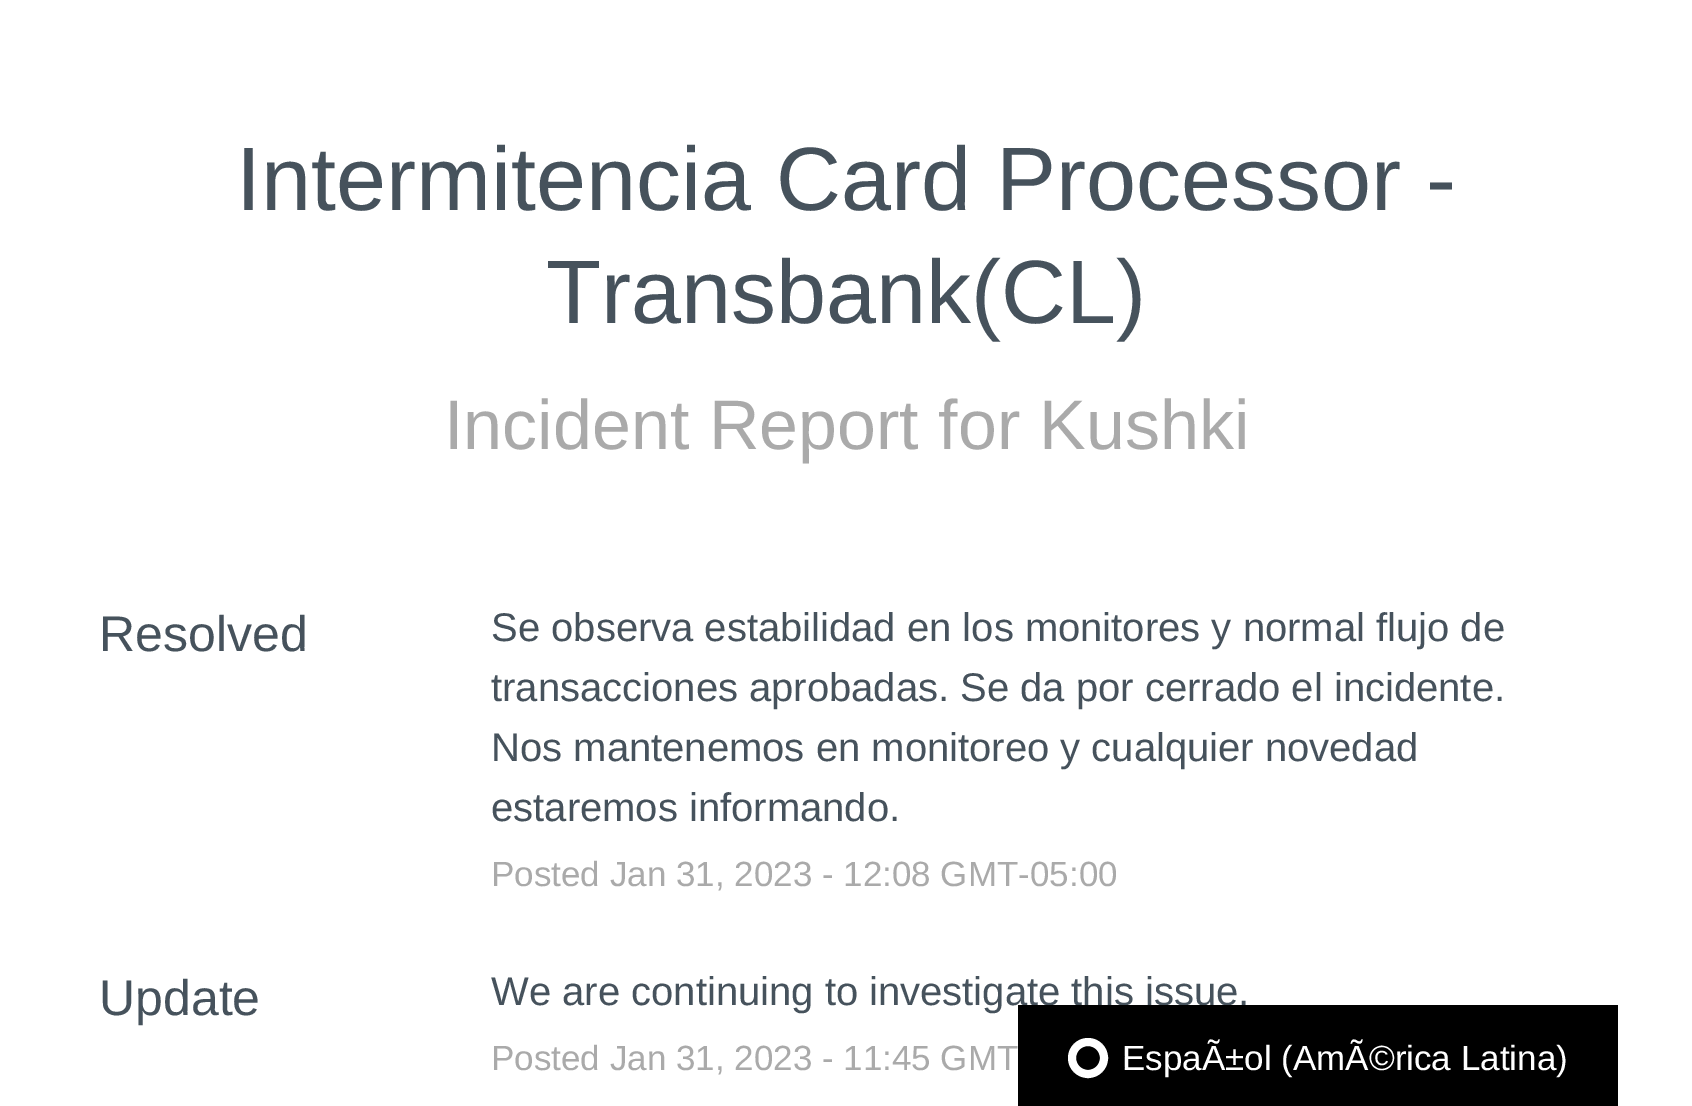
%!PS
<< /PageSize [1692 1106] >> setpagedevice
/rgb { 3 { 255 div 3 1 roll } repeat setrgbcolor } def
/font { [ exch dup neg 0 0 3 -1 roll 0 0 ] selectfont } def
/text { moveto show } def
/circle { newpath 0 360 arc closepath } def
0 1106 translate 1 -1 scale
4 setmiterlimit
255 255 255 rgb
0 0 1692 1106 rectfill
/LiberationSans-Regular 90 font
70 82 92 rgb
(Intermitencia Card Processor -) 236 210 text
(Transbank\(CL\)) 546 323 text
/LiberationSans-Regular 70 font
170 170 170 rgb
(Incident Report for Kushki) 444 449 text
/LiberationSans-Regular 50 font
70 82 92 rgb
(Resolved) 99 651 text
/LiberationSans-Regular 40 font
(Se observa estabilidad en los monitores y normal flujo de) 491 641 text
(transacciones aprobadas. Se da por cerrado el incidente.) 491 701 text
(Nos mantenemos en monitoreo y cualquier novedad) 491 761 text
(estaremos informando.) 491 821 text
/LiberationSans-Regular 35 font
170 170 170 rgb
(Posted Jan 31, 2023 - 12:08 GMT-05:00) 491 886 text
/LiberationSans-Regular 50 font
70 82 92 rgb
(Update) 99 1015 text
/LiberationSans-Regular 40 font
(We are continuing to investigate this issue.) 491 1005 text
/LiberationSans-Regular 35 font
170 170 170 rgb
(Posted Jan 31, 2023 - 11:45 GMT) 491 1070 text
0 0 0 rgb
1018 1005 600 101 rectfill
255 255 255 rgb
8 setlinewidth
1088 1058 16 circle stroke
(EspaÃ±ol \(AmÃ©rica Latina\)) 1122 1070 text
showpage
